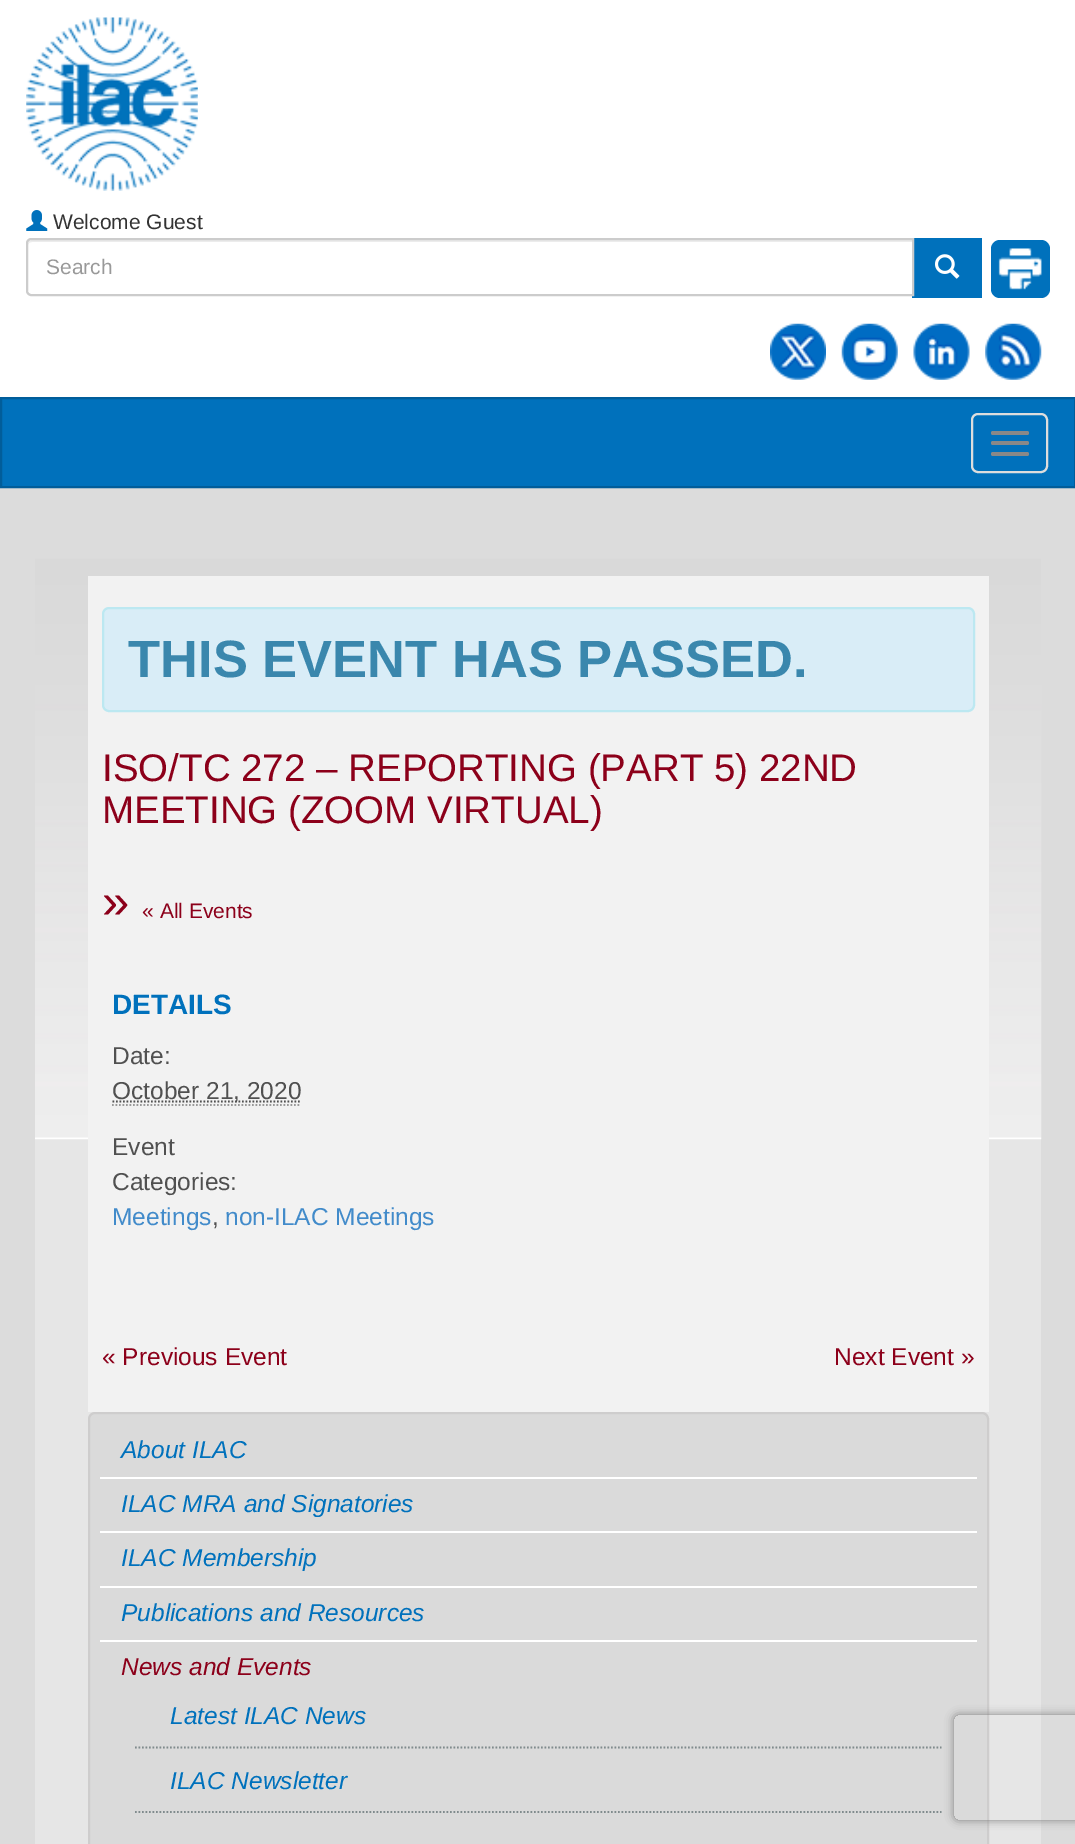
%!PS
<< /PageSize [1075 1844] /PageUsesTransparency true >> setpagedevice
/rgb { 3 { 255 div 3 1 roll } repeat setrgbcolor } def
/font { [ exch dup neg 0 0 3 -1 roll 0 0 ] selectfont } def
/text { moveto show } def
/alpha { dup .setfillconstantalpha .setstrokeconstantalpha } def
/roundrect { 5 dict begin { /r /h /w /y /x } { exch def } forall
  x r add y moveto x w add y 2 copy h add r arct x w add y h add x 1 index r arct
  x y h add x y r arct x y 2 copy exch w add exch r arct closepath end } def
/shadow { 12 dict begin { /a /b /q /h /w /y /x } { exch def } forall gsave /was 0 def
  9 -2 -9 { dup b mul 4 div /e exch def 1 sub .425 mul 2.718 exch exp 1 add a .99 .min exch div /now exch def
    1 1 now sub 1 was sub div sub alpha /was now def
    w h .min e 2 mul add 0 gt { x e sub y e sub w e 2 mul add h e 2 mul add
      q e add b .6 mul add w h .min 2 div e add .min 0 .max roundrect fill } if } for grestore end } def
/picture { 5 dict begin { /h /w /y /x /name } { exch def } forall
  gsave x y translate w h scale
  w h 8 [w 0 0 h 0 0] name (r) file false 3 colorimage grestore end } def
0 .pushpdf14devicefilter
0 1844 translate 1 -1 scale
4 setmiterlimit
220 220 220 rgb
0 0 1075 1844 rectfill
255 255 255 rgb
0 0 1075 397 rectfill
(img_01.rgb) 26 17 172 174 picture
(img_02.rgb) 26 210 22 21 picture
0 113 188 rgb
912 238 70 60 rectfill
255 255 255 rgb
31 238 moveto 883 0 rlineto 0 58 rlineto -883 0 rlineto -3 0 -5 -2 -5 -5 rcurveto 0 -48 rlineto 0 -3 2 -5 5 -5 rcurveto closepath fill
236 236 236 rgb
32 242 moveto 880 0 rlineto 0 -2 rlineto -880 0 rlineto -3 0 -4 2 -4 5 rcurveto 0 -2 2 -3 4 -3 rcurveto closepath fill
204 204 204 rgb
2 setlinewidth
31 239 moveto 882 0 rlineto 0 56 rlineto -882 0 rlineto -2 0 -4 -2 -4 -4 rcurveto 0 -48 rlineto 0 -2 2 -4 4 -4 rcurveto closepath stroke
(img_03.rgb) 935 254 25 25 picture
0 113 188 rgb
991 240 59 58 9 roundrect fill
(img_04.rgb) 998 248 44 42 picture
(img_05.rgb) 770 323 56 57 picture
(img_06.rgb) 841 323 57 57 picture
(img_07.rgb) 913 323 57 57 picture
(img_08.rgb) 985 323 57 57 picture
1 398 moveto 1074 0 rlineto 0 89 rlineto -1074 0 rlineto closepath gsave fill grestore
1 93 154 rgb
stroke
221 221 221 rgb
972 414 75 58 6 roundrect stroke
136 136 136 rgb
991 431 38 4 2 roundrect fill
991 441 38 4 2 roundrect fill
991 452 38 4 2 roundrect fill
230 230 230 rgb
35 558 1006 1286 rectfill
(img_09.rgb) 35 558 1007 582 picture
242 242 242 rgb
88 576 901 836 rectfill
217 237 247 rgb
103 608 871 103 6 roundrect gsave fill grestore
188 232 241 rgb
stroke
153 153 153 rgb
1.8 setlinewidth
[1.75 1.75] 0 setdash
112 1105 moveto 189 0 rlineto stroke
80 80 80 rgb
112.5 1101.5 moveto 189 0 rlineto stroke
218 218 218 rgb
89 1413 899 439 6 roundrect gsave fill grestore
206 205 205 rgb
2 setlinewidth
[] 0 setdash
stroke
255 255 255 rgb
100 1477 877 2 rectfill
100 1531 877 2 rectfill
100 1586 877 2 rectfill
100 1640 877 2 rectfill
128 139 141 rgb
1.8 setlinewidth
[1.75 1.75] 0 setdash
135 1747.5 moveto 806.5 0 rlineto stroke
135 1812 moveto 806.5 0 rlineto stroke
gsave
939 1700 moveto 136 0 rlineto 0 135 rlineto -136 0 rlineto closepath 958 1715 moveto 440 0 rlineto 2 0 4 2 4 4 rcurveto 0 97 rlineto 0 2 -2 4 -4 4 rcurveto -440 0 rlineto -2 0 -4 -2 -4 -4 rcurveto 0 -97 rlineto 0 -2 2 -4 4 -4 rcurveto closepath eoclip newpath
128 128 128 rgb
954 1715 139 105 4 4.5 1 shadow
grestore
/LiberationSans-Regular 21 font
51 51 51 rgb
(Welcome Guest) 53 229 text
153 153 153 rgb
(Search) 46 274 text
/LiberationSans-Bold 52.5 font
58 135 173 rgb
(THIS EVENT HAS PASSED.) 128 677 text
/LiberationSans-Regular 38.5 font
140 0 26 rgb
(ISO/TC 272 – REPORTING \(PART 5\) 22ND) 102 781 text
(MEETING \(ZOOM VIRTUAL\)) 102 823 text
/LiberationSans-Regular 49 font
(») 102 918 text
/LiberationSans-Regular 21 font
(« All Events) 142 918 text
/LiberationSans-Bold 28 font
0 113 188 rgb
(DETAILS) 112 1014 text
/LiberationSans-Regular 24.5 font
80 80 80 rgb
(Date:) 112 1064 text
(October 21, 2020) 112 1099 text
(Event) 112 1155 text
(Categories:) 112 1190 text
66 139 202 rgb
(Meetings) 112 1225 text
80 80 80 rgb
(,) 212 1225 text
66 139 202 rgb
(non-ILAC Meetings) 225 1225 text
140 0 26 rgb
(« Previous Event) 102 1365 text
(Next Event ») 834 1365 text
/LiberationSans-Italic 24.5 font
0 113 188 rgb
(About ILAC) 121 1458 text
(ILAC MRA and Signatories) 121 1512 text
(ILAC Membership) 121 1566 text
(Publications and Resources) 121 1621 text
140 0 26 rgb
(News and Events) 121 1675 text
0 113 188 rgb
(Latest ILAC News) 170 1724 text
(ILAC Newsletter) 170 1789 text
.poppdf14devicefilter showpage
